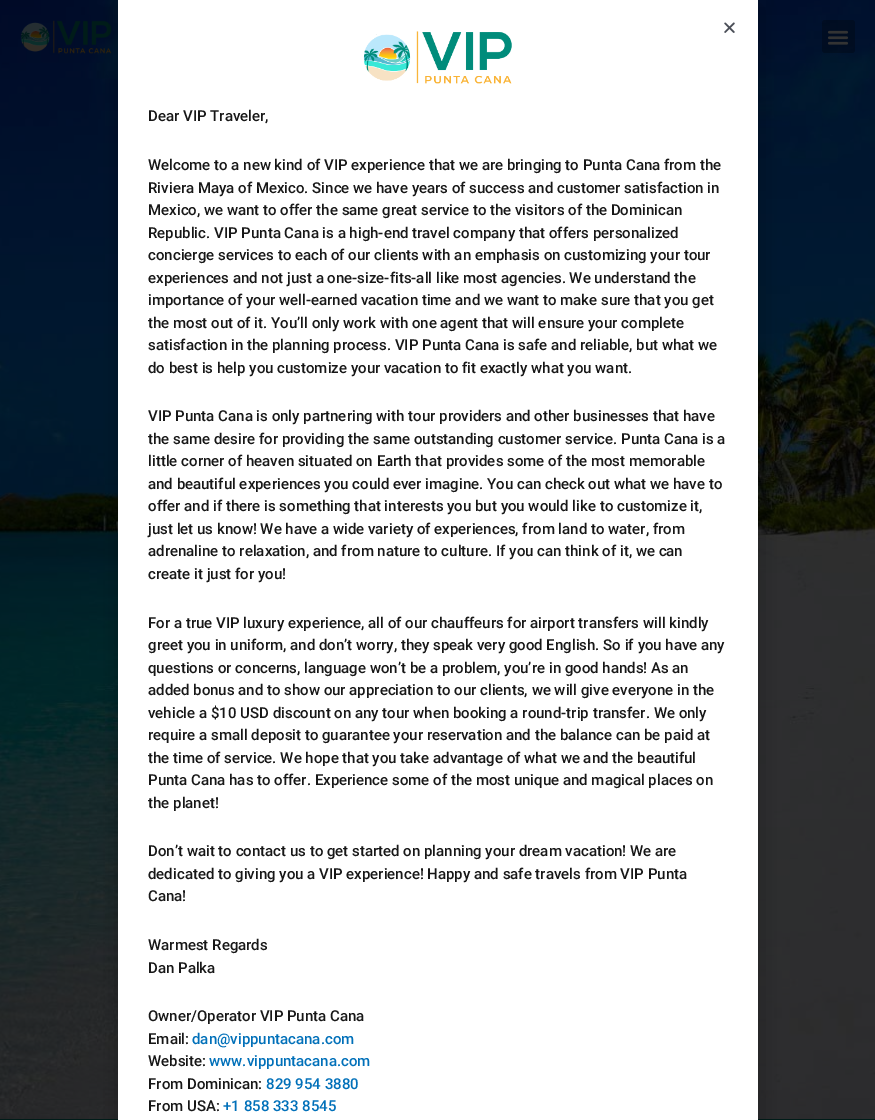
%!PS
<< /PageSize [875 1120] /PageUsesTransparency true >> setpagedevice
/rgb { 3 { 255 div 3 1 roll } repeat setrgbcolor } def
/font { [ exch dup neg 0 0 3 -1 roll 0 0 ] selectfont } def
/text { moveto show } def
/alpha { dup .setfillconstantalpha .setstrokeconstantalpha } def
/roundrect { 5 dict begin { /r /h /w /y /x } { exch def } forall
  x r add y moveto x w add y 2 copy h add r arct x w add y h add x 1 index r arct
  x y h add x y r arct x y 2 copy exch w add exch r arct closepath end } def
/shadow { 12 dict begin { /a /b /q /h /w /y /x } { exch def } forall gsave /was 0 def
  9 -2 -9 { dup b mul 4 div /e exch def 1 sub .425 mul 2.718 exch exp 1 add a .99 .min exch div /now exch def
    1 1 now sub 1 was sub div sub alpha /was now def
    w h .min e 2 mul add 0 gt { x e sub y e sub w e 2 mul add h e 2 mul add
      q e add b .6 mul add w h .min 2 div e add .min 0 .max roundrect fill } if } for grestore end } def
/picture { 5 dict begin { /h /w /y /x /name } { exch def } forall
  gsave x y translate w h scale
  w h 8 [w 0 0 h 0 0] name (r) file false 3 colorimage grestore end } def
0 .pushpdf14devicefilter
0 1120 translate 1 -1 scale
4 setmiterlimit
255 255 255 rgb
0 0 875 1120 rectfill
(img_01.rgb) 0 0 875 1119 picture
(img_02.rgb) 20 20 92 34 picture
0.26 alpha
0 0 0 rgb
822 20 33 33 3 roundrect fill
1 alpha
(img_03.rgb) 827 30 22 15 picture
0 28 25 rgb
0 1119 875 1 rectfill
0 0 0 rgb
117 5 646 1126 0 11.5 0.2 shadow
255 255 255 rgb
118 0 640 1120 rectfill
(img_04.rgb) 724 22 11 11 picture
(img_05.rgb) 363 31 149 53 picture
/Roboto-Medium 15 font
23 23 23 rgb
(Dear VIP Traveler,) 148 121 text
(Welcome to a new kind of VIP experience that we are bringing to Punta Cana from the) 148 170 text
(Riviera Maya of Mexico. Since we have years of success and customer satisfaction in) 148 193 text
(Mexico, we want to offer the same great service to the visitors of the Dominican) 148 215 text
(Republic. VIP Punta Cana is a high-end travel company that offers personalized) 148 238 text
(concierge services to each of our clients with an emphasis on customizing your tour) 148 260 text
(experiences and not just a one-size-fits-all like most agencies. We understand the) 148 283 text
(importance of your well-earned vacation time and we want to make sure that you get) 148 305 text
(the most out of it. You’ll only work with one agent that will ensure your complete) 148 328 text
(satisfaction in the planning process. VIP Punta Cana is safe and reliable, but what we) 148 350 text
(do best is help you customize your vacation to fit exactly what you want.) 148 373 text
(VIP Punta Cana is only partnering with tour providers and other businesses that have) 148 421 text
(the same desire for providing the same outstanding customer service. Punta Cana is a) 148 444 text
(little corner of heaven situated on Earth that provides some of the most memorable) 148 466 text
(and beautiful experiences you could ever imagine. You can check out what we have to) 148 489 text
(offer and if there is something that interests you but you would like to customize it,) 148 511 text
(just let us know! We have a wide variety of experiences, from land to water, from) 148 534 text
(adrenaline to relaxation, and from nature to culture. If you can think of it, we can) 148 556 text
(create it just for you!) 148 579 text
(For a true VIP luxury experience, all of our chauffeurs for airport transfers will kindly) 148 628 text
(greet you in uniform, and don’t worry, they speak very good English. So if you have any) 148 650 text
(questions or concerns, language won’t be a problem, you’re in good hands! As an) 148 673 text
(added bonus and to show our appreciation to our clients, we will give everyone in the) 148 695 text
(vehicle a $10 USD discount on any tour when booking a round-trip transfer. We only) 148 718 text
(require a small deposit to guarantee your reservation and the balance can be paid at) 148 740 text
(the time of service. We hope that you take advantage of what we and the beautiful) 148 763 text
(Punta Cana has to offer. Experience some of the most unique and magical places on) 148 785 text
(the planet!) 148 808 text
(Don’t wait to contact us to get started on planning your dream vacation! We are) 148 856 text
(dedicated to giving you a VIP experience! Happy and safe travels from VIP Punta) 148 879 text
(Cana!) 148 901 text
(Warmest Regards) 148 950 text
(Dan Palka) 148 973 text
(Owner/Operator VIP Punta Cana) 148 1021 text
(Email:) 148 1044 text
1 112 185 rgb
(dan@vippuntacana.com) 192 1044 text
23 23 23 rgb
(Website:) 148 1066 text
1 112 185 rgb
(www.vippuntacana.com) 209 1066 text
23 23 23 rgb
(From Dominican:) 148 1089 text
1 112 185 rgb
(829 954 3880) 266 1089 text
23 23 23 rgb
(From USA:) 148 1111 text
1 112 185 rgb
(+1 858 333 8545) 223 1111 text
.poppdf14devicefilter showpage
